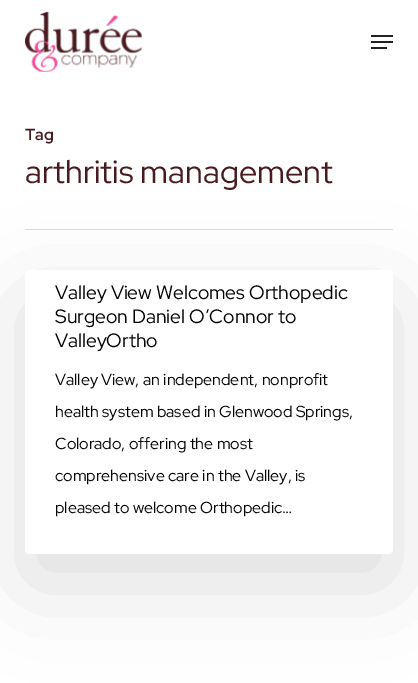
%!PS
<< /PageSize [418 683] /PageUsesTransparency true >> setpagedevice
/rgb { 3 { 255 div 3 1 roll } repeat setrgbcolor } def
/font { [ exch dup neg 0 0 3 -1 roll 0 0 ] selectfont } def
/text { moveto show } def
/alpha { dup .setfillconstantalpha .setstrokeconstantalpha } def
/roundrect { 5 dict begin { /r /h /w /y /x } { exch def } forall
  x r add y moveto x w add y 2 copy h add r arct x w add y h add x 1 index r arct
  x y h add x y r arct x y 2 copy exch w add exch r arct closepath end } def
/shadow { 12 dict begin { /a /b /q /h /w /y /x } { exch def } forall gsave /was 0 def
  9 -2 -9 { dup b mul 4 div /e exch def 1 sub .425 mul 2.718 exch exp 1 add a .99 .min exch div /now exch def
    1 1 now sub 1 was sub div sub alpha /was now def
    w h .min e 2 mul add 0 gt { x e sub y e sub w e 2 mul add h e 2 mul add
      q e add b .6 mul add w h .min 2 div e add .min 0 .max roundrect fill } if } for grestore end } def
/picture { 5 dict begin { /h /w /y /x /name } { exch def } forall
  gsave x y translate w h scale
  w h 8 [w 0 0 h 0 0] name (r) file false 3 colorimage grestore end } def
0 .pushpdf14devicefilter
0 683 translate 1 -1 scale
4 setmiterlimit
255 255 255 rgb
0 0 418 683 rectfill
(img_01.rgb) 25 12 117 60 picture
34 34 34 rgb
371 35 22 2 rectfill
371 47 16 2 rectfill
371 41 22 2 rectfill
0 0 0 rgb
25 300 368 284 5 45 0.14 shadow
217 217 217 rgb
25 229 368 1 rectfill
255 255 255 rgb
25 270 368 284 5 roundrect fill
/RedHatDisplay-Bold 16 font
73 27 32 rgb
(Tag) 25 140 text
/RedHatDisplay-Regular 32.5 font
(arthritis management) 25 183 text
/RedHatDisplay-Regular 19.25 font
0 0 0 rgb
(Valley View Welcomes Orthopedic) 55 299 text
(Surgeon Daniel O’Connor to) 55 323 text
(ValleyOrtho) 55 347 text
/RedHatDisplay-Regular 16 font
(Valley View, an independent, nonprofit) 55 385 text
(health system based in Glenwood Springs,) 55 417 text
(Colorado, offering the most) 55 449 text
(comprehensive care in the Valley, is) 55 481 text
(pleased to welcome Orthopedic…) 55 513 text
.poppdf14devicefilter showpage
